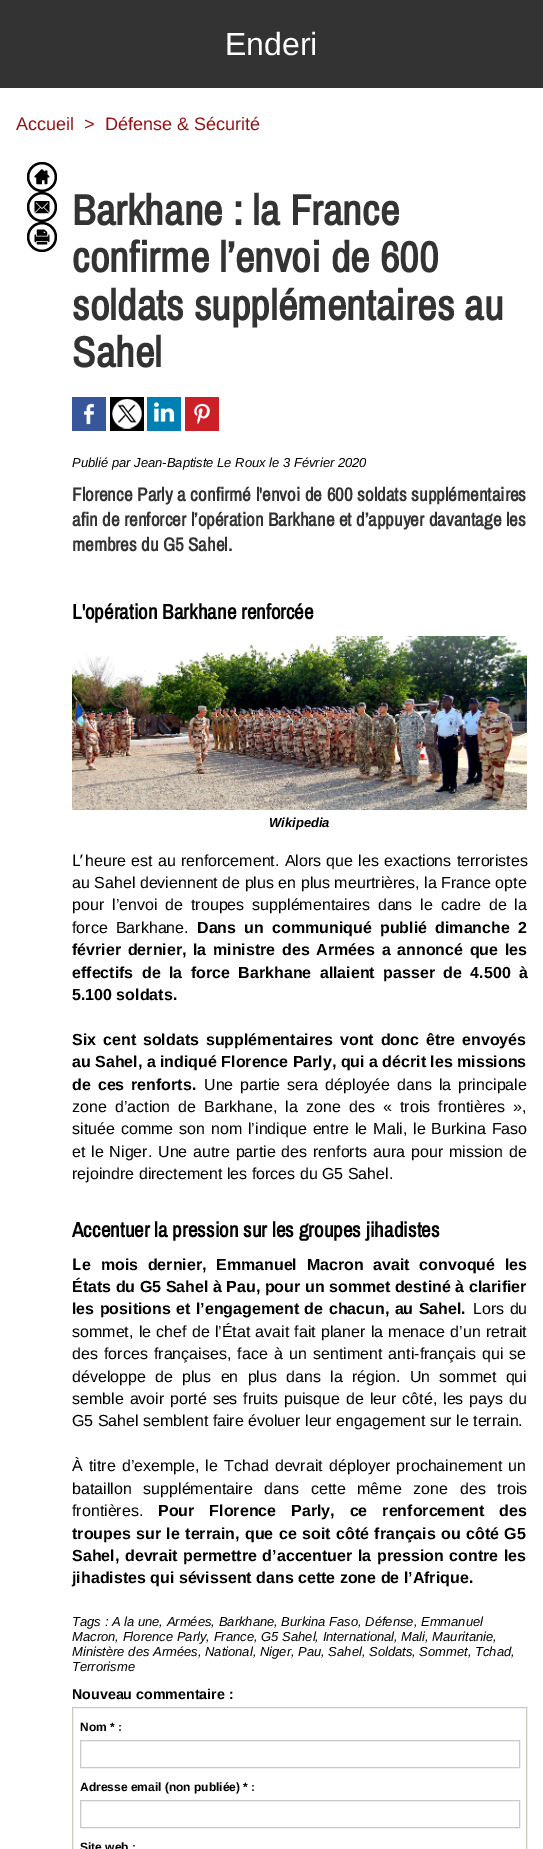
%!PS
<< /PageSize [543 1849] >> setpagedevice
/rgb { 3 { 255 div 3 1 roll } repeat setrgbcolor } def
/font { [ exch dup neg 0 0 3 -1 roll 0 0 ] selectfont } def
/text { moveto show } def
/picture { 5 dict begin { /h /w /y /x /name } { exch def } forall
  gsave x y translate w h scale
  w h 8 [w 0 0 h 0 0] name (r) file false 3 colorimage grestore end } def
0 1849 translate 1 -1 scale
4 setmiterlimit
255 255 255 rgb
0 0 543 1849 rectfill
51 51 51 rgb
0 0 543 88 rectfill
(img_01.rgb) 27 162 30 30 picture
(img_02.rgb) 27 192 30 30 picture
(img_03.rgb) 27 222 30 30 picture
(img_04.rgb) 72 397 34 34 picture
(img_05.rgb) 110 397 34 34 picture
(img_06.rgb) 147 397 34 34 picture
(img_07.rgb) 185 397 34 34 picture
(img_08.rgb) 72 636 455 174 picture
204 201 195 rgb
72.5 1707.5 454 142 rectstroke
201 201 201 rgb
80.5 1740.5 439 27 rectstroke
80.5 1800.5 439 27 rectstroke
/LiberationSans-Regular 32 font
255 255 255 rgb
(Enderi) 225 55 text
/LiberationSans-Regular 18 font
150 18 18 rgb
(Accueil) 16 130 text
(>) 84 130 text
(Défense & Sécurité) 105 130 text
/ArchivoNarrow-Bold 43 font
51 51 51 rgb
(Barkhane : la France) 72 225 text
(confirme l’envoi de 600) 72 272 text
(soldats supplémentaires au) 72 320 text
(Sahel) 72 367 text
/LiberationSans-Italic 13 font
0 0 0 rgb
(Publié par Jean-Baptiste Le Roux le 3 Février 2020) 72 467 text
/ArchivoNarrow-Bold 19 font
51 51 51 rgb
72 501 moveto 0.25 0 32 (Florence Parly a confirmé l'envoi de 600 soldats supplémentaires) widthshow
(afin de renforcer l’opération Barkhane et d’appuyer davantage les) 72 526 text
(membres du G5 Sahel.) 72 551 text
/ArchivoNarrow-Bold 21 font
0 0 0 rgb
(L'opération Barkhane renforcée) 72 619 text
/LiberationSans-BoldItalic 13 font
(Wikipedia) 269 827 text
/NotoSans-Regular 16 font
(L’) 72 866 text
/LiberationSans-Regular 16 font
85 866 moveto 0.75 0 32 (heure est au renforcement. Alors que les exactions terroristes) widthshow
(au Sahel deviennent de plus en plus meurtrières, la France opte) 72 888 text
72 910 moveto 3.5 0 32 (pour l’envoi de troupes supplémentaires dans le cadre de la) widthshow
72 933 moveto 3.75 0 32 (force Barkhane.) widthshow
/LiberationSans-Bold 16 font
197 933 moveto 3.75 0 32 (Dans un communiqué publié dimanche 2) widthshow
72 955 moveto 2.25 0 32 (février dernier, la ministre des Armées a annoncé que les) widthshow
72 978 moveto 4 0 32 (effectifs de la force Barkhane allaient passer de 4.500 à) widthshow
(5.100 soldats.) 72 1000 text
72 1045 moveto 2.5 0 32 (Six cent soldats supplémentaires vont donc être envoyés) widthshow
(au Sahel, a indiqué Florence Parly, qui a décrit les missions) 72 1067 text
72 1090 moveto 2.5 0 32 (de ces renforts.) widthshow
/LiberationSans-Regular 16 font
204 1090 moveto 2.5 0 32 (Une partie sera déployée dans la principale) widthshow
72 1112 moveto 3.75 0 32 (zone d’action de Barkhane, la zone des « trois frontières »,) widthshow
72 1134 moveto 1.5 0 32 (située comme son nom l’indique entre le Mali, le Burkina Faso) widthshow
72 1157 moveto 1.4 0 32 (et le Niger. Une autre partie des renforts aura pour mission de) widthshow
(rejoindre directement les forces du G5 Sahel.) 72 1179 text
/ArchivoNarrow-Bold 21 font
(Accentuer la pression sur les groupes jihadistes) 72 1237 text
/NotoSans-Bold 16 font
(L) 72 1270 text
/LiberationSans-Bold 16 font
82 1270 moveto 5.25 0 32 (e mois dernier, Emmanuel Macron avait convoqué les) widthshow
72 1292 moveto 0.1 0 32 (États du G5 Sahel à Pau, pour un sommet destiné à clarifier) widthshow
72 1314 moveto 1 0 32 (les positions et l’engagement de chacun, au Sahel.) widthshow
/LiberationSans-Regular 16 font
473 1314 moveto 1 0 32 (Lors du) widthshow
72 1337 moveto 0.75 0 32 (sommet, le chef de l’État avait fait planer la menace d’un retrait) widthshow
72 1359 moveto 1.75 0 32 (des forces françaises, face à un sentiment anti-français qui se) widthshow
72 1382 moveto 4.75 0 32 (développe de plus en plus dans la région. Un sommet qui) widthshow
72 1404 moveto 1.5 0 32 (semble avoir porté ses fruits puisque de leur côté, les pays du) widthshow
(G5 Sahel semblent faire évoluer leur engagement sur le terrain.) 72 1426 text
72 1471 moveto 1.75 0 32 (À titre d’exemple, le Tchad devrait déployer prochainement un) widthshow
72 1494 moveto 7.25 0 32 (bataillon supplémentaire dans cette même zone des trois) widthshow
(frontières.) 72 1516 text
/LiberationSans-Bold 16 font
158 1516 moveto 10.5 0 32 (Pour Florence Parly, ce renforcement des) widthshow
72 1539 moveto 1 0 32 (troupes sur le terrain, que ce soit côté français ou côté G5) widthshow
72 1561 moveto 1.25 0 32 (Sahel, devrait permettre d’accentuer la pression contre les) widthshow
(jihadistes qui sévissent dans cette zone de l’Afrique.) 72 1583 text
/LiberationSans-Italic 13 font
(Tags : A la une, Armées, Barkhane, Burkina Faso, Défense, Emmanuel) 72 1626 text
(Macron, Florence Parly, France, G5 Sahel, International, Mali, Mauritanie,) 72 1641 text
(Ministère des Armées, National, Niger, Pau, Sahel, Soldats, Sommet, Tchad,) 72 1656 text
(Terrorisme) 72 1671 text
/LiberationSans-Bold 14.25 font
(Nouveau commentaire :) 72 1699 text
/LiberationSans-Bold 12 font
(Nom * :) 80 1731 text
(Adresse email \(non publiée\) * :) 80 1791 text
(Site web :) 80 1851 text
showpage
